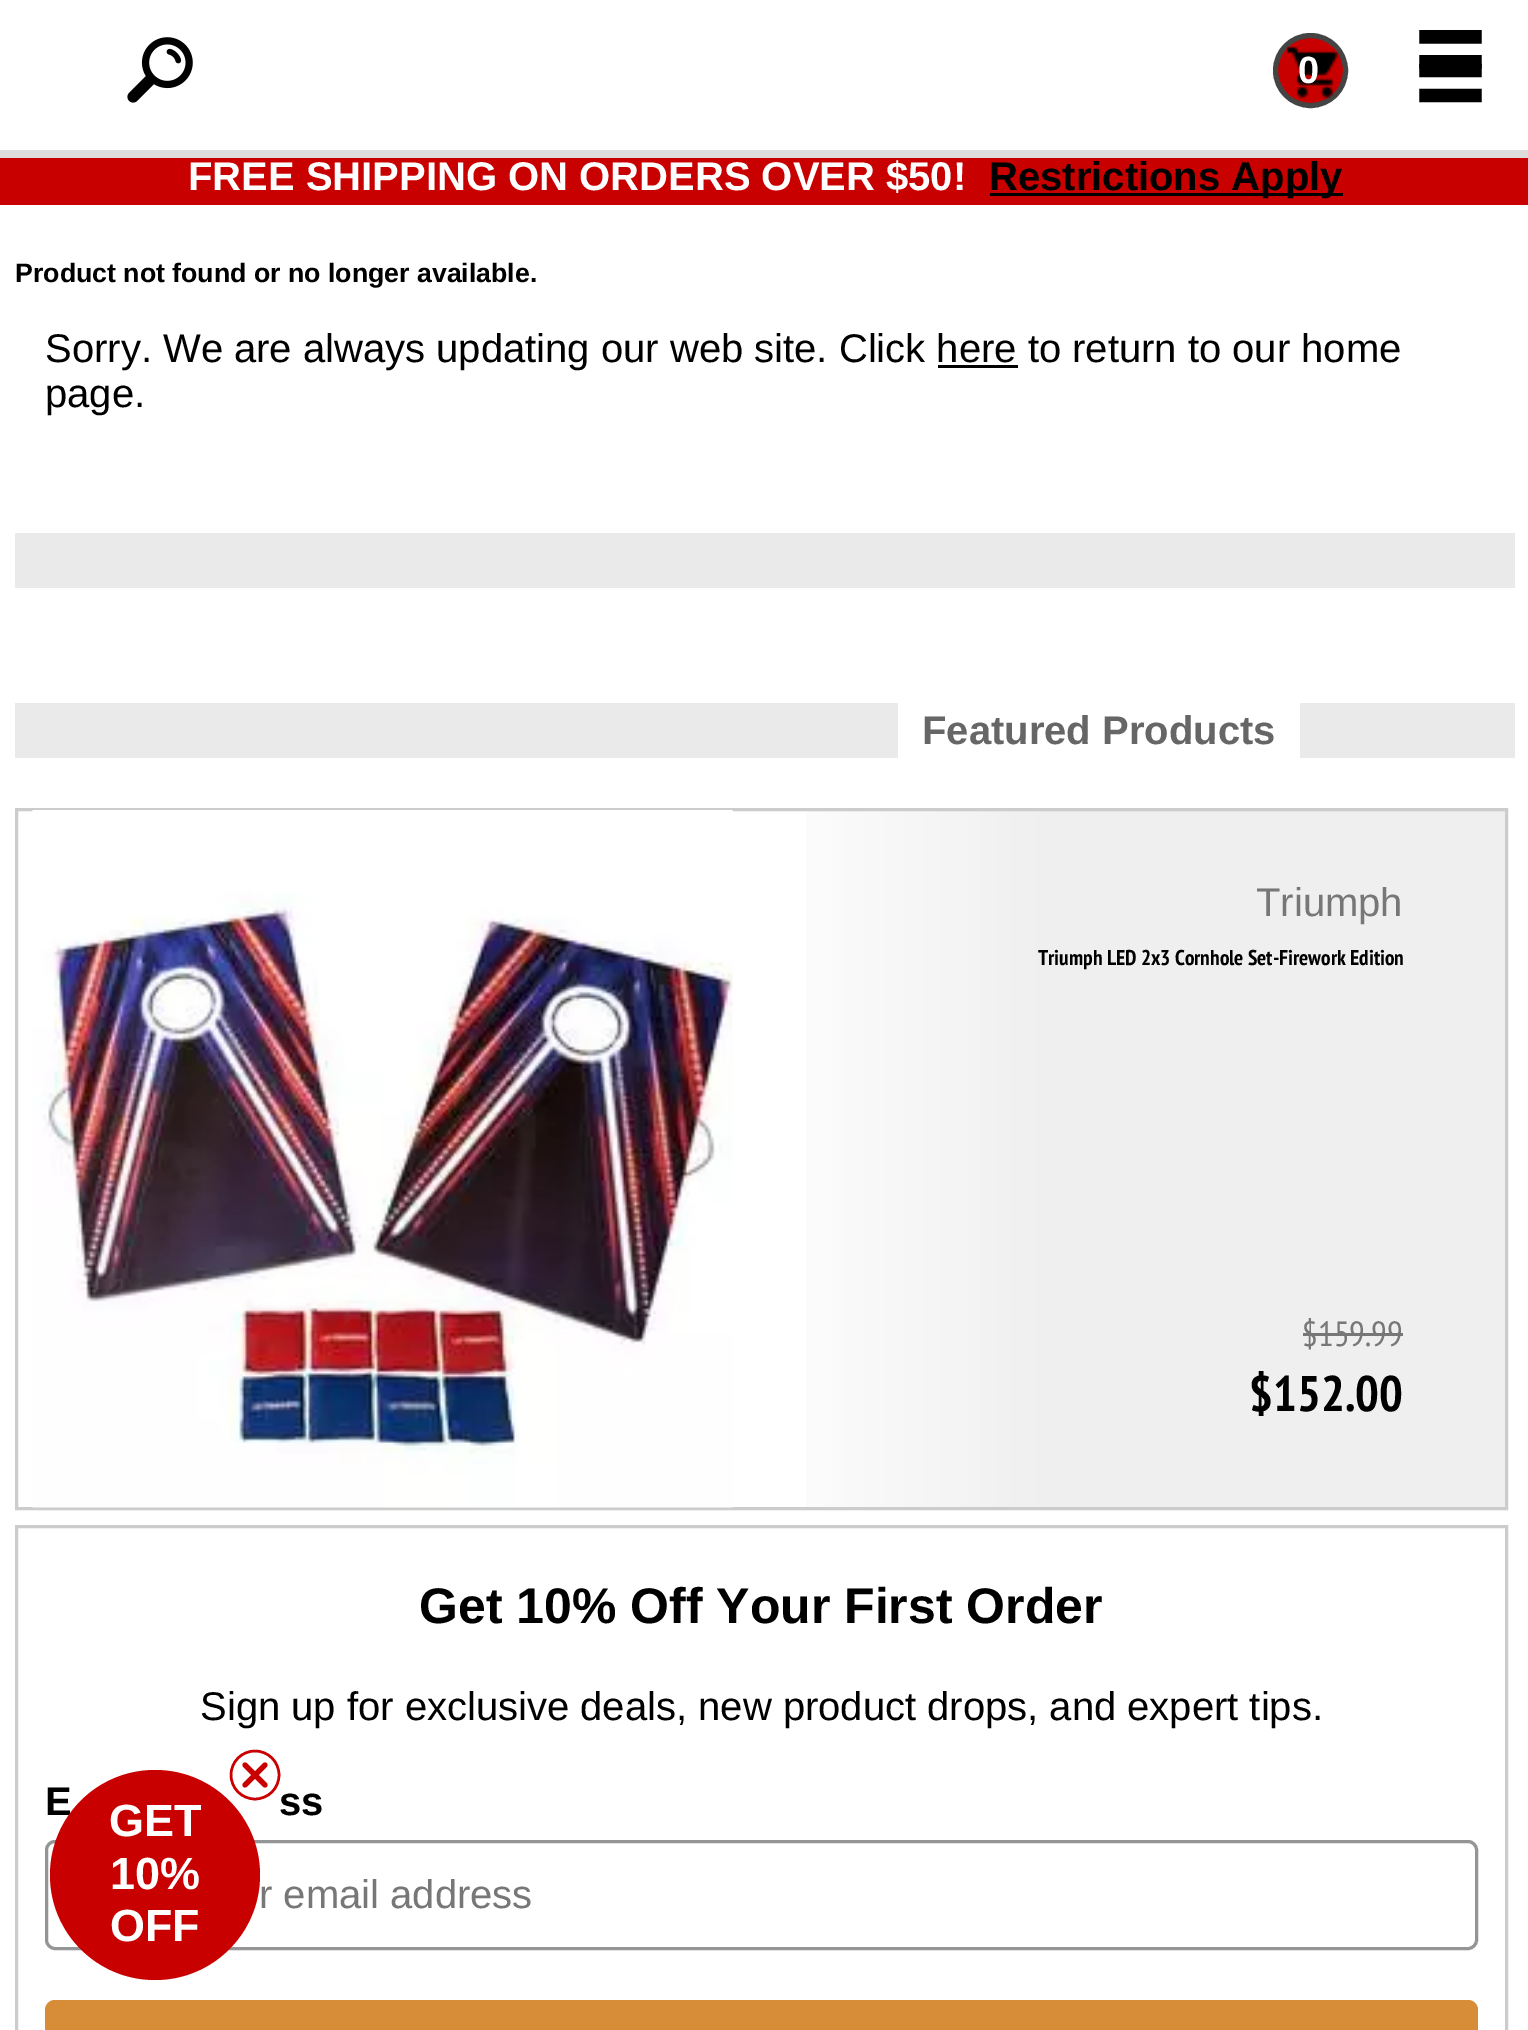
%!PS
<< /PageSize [1528 2030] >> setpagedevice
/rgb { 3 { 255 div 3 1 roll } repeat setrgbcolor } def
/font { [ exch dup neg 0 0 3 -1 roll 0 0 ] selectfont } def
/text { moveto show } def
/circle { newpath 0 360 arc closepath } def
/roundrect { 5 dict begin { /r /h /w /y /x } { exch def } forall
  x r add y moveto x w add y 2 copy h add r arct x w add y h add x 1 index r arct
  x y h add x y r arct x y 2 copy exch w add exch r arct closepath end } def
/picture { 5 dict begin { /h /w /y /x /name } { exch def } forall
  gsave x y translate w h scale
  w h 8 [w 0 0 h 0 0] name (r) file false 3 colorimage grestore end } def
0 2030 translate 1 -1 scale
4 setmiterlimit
201 0 0 rgb
0 0 1528 2030 rectfill
255 255 255 rgb
0 0 1528 150 rectfill
221 221 221 rgb
0 150 1528 8 rectfill
(img_01.rgb) 127 37 66 66 picture
201 0 0 rgb
1310.5 70.5 35 circle gsave fill grestore
68 68 68 rgb
5 setlinewidth
stroke
(img_02.rgb) 1286 46 53 53 picture
0 0 0 rgb
990 193 353 3 rectfill
255 255 255 rgb
0 205 1528 1825 rectfill
0 0 0 rgb
938 365 80 3 rectfill
234 234 234 rgb
15 533 1500 55 rectfill
15 703 1500 55 rectfill
255 255 255 rgb
898 703 402 55 rectfill
gsave 806 811 moveto 699 0 rlineto 0 696 rlineto -699 0 rlineto closepath clip newpath
<< /ShadingType 2 /ColorSpace /DeviceRGB /Coords [15 1159 1508 1159] /Extend [true true] /Function << /FunctionType 3 /Domain [0 1] /Functions [<< /FunctionType 2 /Domain [0 1] /C0 [1 1 1] /C1 [1 1 1] /N 1 >> << /FunctionType 2 /Domain [0 1] /C0 [1 1 1] /C1 [0.937 0.937 0.937] /N 1 >> << /FunctionType 2 /Domain [0 1] /C0 [0.937 0.937 0.937] /C1 [0.937 0.937 0.937] /N 1 >>] /Bounds [0.5 0.69] /Encode [0 1 0 1 0 1] >> >> shfill grestore
204 204 204 rgb
3 setlinewidth
16.5 809.5 1490 699 rectstroke
(img_03.rgb) 32 810 701 698 picture
119 119 119 rgb
1303 1333 100 3 rectfill
204 204 204 rgb
16.5 1526.5 1490 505 rectstroke
148 149 150 rgb
46.5 1841.5 1430 107 8.5 roundrect stroke
215 140 56 rgb
45 2000 1433 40 10 roundrect fill
/LiberationSans-Bold 38 font
255 255 255 rgb
(0) 1298 83 text
/LiberationSans-Bold 125 font
0 0 0 rgb
(=) 1414 95 text
(=) 1414 120 text
/LiberationSans-Bold 40 font
255 255 255 rgb
(FREE SHIPPING ON ORDERS OVER $50!) 188 190 text
0 0 0 rgb
(Restrictions Apply) 989 190 text
/LiberationSans-Bold 26.7 font
(Product not found or no longer available.) 15 282 text
/LiberationSans-Regular 40 font
(Sorry. We are always updating our web site. Click here to return to our home) 45 362 text
(page.) 45 407 text
/LiberationSans-Bold 40 font
102 102 102 rgb
(Featured Products) 922 744 text
/LiberationSans-Regular 40 font
119 119 119 rgb
(Triumph) 1256 916 text
/PTSansNarrow-Bold 21.4 font
0 0 0 rgb
(Triumph LED 2x3 Cornhole Set-Firework Edition) 1038 965 text
/PTSansNarrow-Regular 35 font
119 119 119 rgb
($159.99) 1302 1346 text
/PTSansNarrow-Bold 50 font
0 0 0 rgb
($152.00) 1249 1411 text
/LiberationSans-Bold 50 font
(Get 10% Off Your First Order) 419 1623 text
/LiberationSans-Regular 40 font
(Sign up for exclusive deals, new product drops, and expert tips.) 200 1720 text
/LiberationSans-Bold 40 font
(E) 45 1815 text
(ss) 279 1815 text
/LiberationSans-Regular 40 font
119 119 119 rgb
(r email address) 259 1908 text
201 0 0 rgb
155 1875 105 circle fill
2.5 setlinewidth
255 1775 24 circle stroke
5 setlinewidth
1 setlinecap
1 setlinejoin
245 1765 moveto 20 20 rlineto 245 1785 moveto 20 -20 rlineto closepath stroke
/LiberationSans-Bold 45 font
255 255 255 rgb
(GET) 109 1836 text
(10%) 110 1889 text
(OFF) 110 1941 text
showpage
